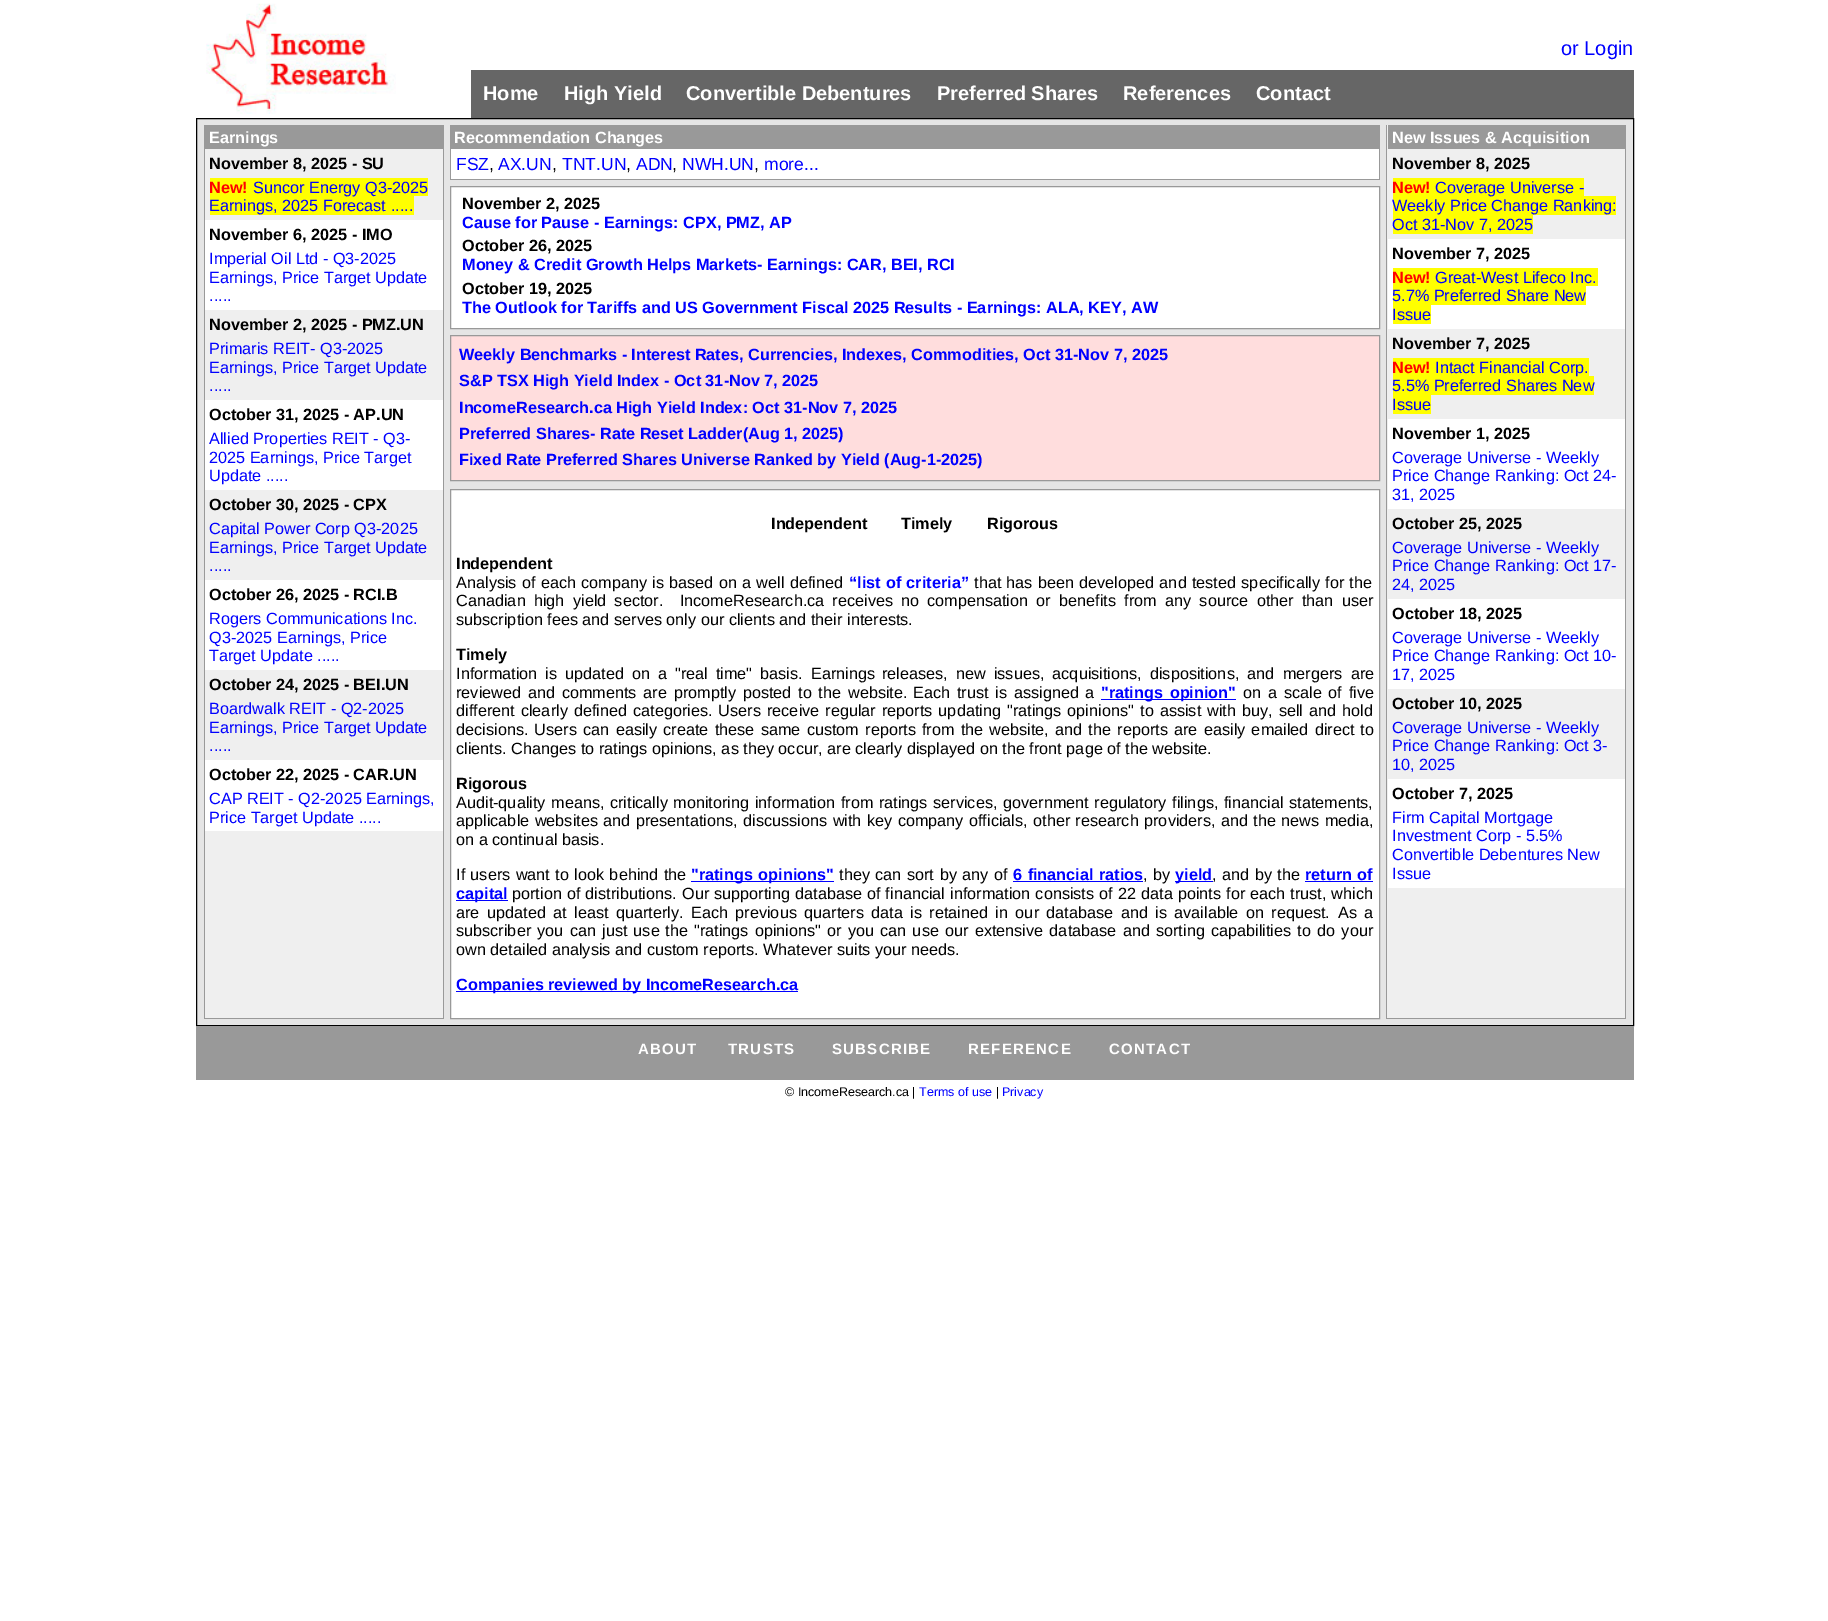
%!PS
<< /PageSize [1828 1621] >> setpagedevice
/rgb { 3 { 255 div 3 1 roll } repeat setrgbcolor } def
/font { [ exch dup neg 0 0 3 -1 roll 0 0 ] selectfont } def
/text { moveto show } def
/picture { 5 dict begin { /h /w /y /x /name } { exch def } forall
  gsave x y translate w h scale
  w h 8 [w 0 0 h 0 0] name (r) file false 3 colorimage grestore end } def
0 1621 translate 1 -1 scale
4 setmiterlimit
255 255 255 rgb
0 0 1828 1621 rectfill
(img_01.rgb) 206 3 190 111 picture
102 102 102 rgb
471 70 1163 48 rectfill
229 229 229 rgb
196.5 118.5 moveto 1437 0 rlineto 0 907 rlineto -1437 0 rlineto closepath gsave fill grestore
0 0 0 rgb
stroke
239 239 239 rgb
205 149 238 869 rectfill
153 153 153 rgb
443 125 1 894 rectfill
204 1018 240 1 rectfill
204 125 1 894 rectfill
205 125 238 24 rectfill
255 255 0 rgb
210 178 218 18 rectfill
210 196 204 19 rectfill
255 255 255 rgb
205 220 238 90 rectfill
205 400 238 90 rectfill
205 580 238 90 rectfill
205 760 238 71 rectfill
153 153 153 rgb
450 125 930 24 rectfill
450 149 1 30 rectfill
255 255 255 rgb
451 149 928 30 rectfill
153 153 153 rgb
1379 149 1 30 rectfill
450 179 930 1 rectfill
255 255 255 rgb
450.5 186.5 moveto 929 0 rlineto 0 142 rlineto -929 0 rlineto closepath gsave fill grestore
153 153 153 rgb
stroke
255 221 221 rgb
450.5 335.5 moveto 929 0 rlineto 0 145 rlineto -929 0 rlineto closepath gsave fill grestore
153 153 153 rgb
stroke
255 255 255 rgb
450.5 489.5 moveto 929 0 rlineto 0 529 rlineto -929 0 rlineto closepath gsave fill grestore
153 153 153 rgb
stroke
0 0 255 rgb
1101 699 135 1 rectfill
691 881 143 1 rectfill
1013 881 130 1 rectfill
1175 881 38 1 rectfill
1305 881 68 1 rectfill
456 900 52 1 rectfill
456 991 342 1 rectfill
239 239 239 rgb
1387 125 238 893 rectfill
153 153 153 rgb
1625 125 1 894 rectfill
1386 1018 240 1 rectfill
1386 125 1 894 rectfill
1388 125 237 24 rectfill
255 255 0 rgb
1393 178 191 18 rectfill
1393 196 223 19 rectfill
1393 215 140 19 rectfill
255 255 255 rgb
1388 239 237 90 rectfill
255 255 0 rgb
1393 268 205 18 rectfill
1393 286 193 19 rectfill
1393 305 38 19 rectfill
1393 358 196 18 rectfill
1393 376 201 19 rectfill
1393 395 38 19 rectfill
255 255 255 rgb
1388 419 237 90 rectfill
1388 599 237 90 rectfill
1388 779 237 109 rectfill
153 153 153 rgb
196 1026 1438 54 rectfill
/LiberationSans-Regular 20 font
0 0 255 rgb
(or Login) 1561 55 text
/LiberationSans-Bold 20 font
255 255 255 rgb
(Home) 483 100 text
(High Yield) 564 100 text
(Convertible Debentures) 686 100 text
(Preferred Shares) 937 100 text
(References) 1123 100 text
(Contact) 1256 100 text
/LiberationSans-Bold 16.25 font
(Earnings) 209 143 text
0 0 0 rgb
(November 8, 2025 - SU) 209 169 text
255 0 0 rgb
(New!) 209 193 text
/LiberationSans-Regular 16.25 font
0 0 255 rgb
(Suncor Energy Q3-2025) 253 193 text
(Earnings, 2025 Forecast .....) 209 211 text
/LiberationSans-Bold 16.25 font
0 0 0 rgb
(November 6, 2025 - IMO) 209 240 text
/LiberationSans-Regular 16.25 font
0 0 255 rgb
(Imperial Oil Ltd - Q3-2025) 209 264 text
(Earnings, Price Target Update) 209 283 text
(.....) 209 301 text
/LiberationSans-Bold 16.25 font
0 0 0 rgb
(November 2, 2025 - PMZ.UN) 209 330 text
/LiberationSans-Regular 16.25 font
0 0 255 rgb
(Primaris REIT- Q3-2025) 209 354 text
(Earnings, Price Target Update) 209 373 text
(.....) 209 391 text
/LiberationSans-Bold 16.25 font
0 0 0 rgb
(October 31, 2025 - AP.UN) 209 420 text
/LiberationSans-Regular 16.25 font
0 0 255 rgb
(Allied Properties REIT - Q3-) 209 444 text
(2025 Earnings, Price Target) 209 463 text
(Update .....) 209 481 text
/LiberationSans-Bold 16.25 font
0 0 0 rgb
(October 30, 2025 - CPX) 209 510 text
/LiberationSans-Regular 16.25 font
0 0 255 rgb
(Capital Power Corp Q3-2025) 209 534 text
(Earnings, Price Target Update) 209 553 text
(.....) 209 571 text
/LiberationSans-Bold 16.25 font
0 0 0 rgb
(October 26, 2025 - RCI.B) 209 600 text
/LiberationSans-Regular 16.25 font
0 0 255 rgb
(Rogers Communications Inc.) 209 624 text
(Q3-2025 Earnings, Price) 209 643 text
(Target Update .....) 209 661 text
/LiberationSans-Bold 16.25 font
0 0 0 rgb
(October 24, 2025 - BEI.UN) 209 690 text
/LiberationSans-Regular 16.25 font
0 0 255 rgb
(Boardwalk REIT - Q2-2025) 209 714 text
(Earnings, Price Target Update) 209 733 text
(.....) 209 751 text
/LiberationSans-Bold 16.25 font
0 0 0 rgb
(October 22, 2025 - CAR.UN) 209 780 text
/LiberationSans-Regular 16.25 font
0 0 255 rgb
(CAP REIT - Q2-2025 Earnings,) 209 804 text
(Price Target Update .....) 209 823 text
/LiberationSans-Bold 16.25 font
255 255 255 rgb
(Recommendation Changes) 454 143 text
/LiberationSans-Regular 17.5 font
0 0 255 rgb
(FSZ) 456 170 text
0 0 0 rgb
(,) 489 170 text
0 0 255 rgb
(AX.UN) 498 170 text
0 0 0 rgb
(,) 552 170 text
0 0 255 rgb
(TNT.UN) 562 170 text
0 0 0 rgb
(,) 626 170 text
0 0 255 rgb
(ADN) 636 170 text
0 0 0 rgb
(,) 672 170 text
0 0 255 rgb
(NWH.UN) 682 170 text
0 0 0 rgb
(,) 754 170 text
0 0 255 rgb
(more...) 764 170 text
/LiberationSans-Bold 16.25 font
0 0 0 rgb
(November 2, 2025) 462 209 text
0 0 255 rgb
(Cause for Pause - Earnings: CPX, PMZ, AP) 462 228 text
0 0 0 rgb
(October 26, 2025) 462 251 text
0 0 255 rgb
(Money & Credit Growth Helps Markets- Earnings: CAR, BEI, RCI) 462 270 text
0 0 0 rgb
(October 19, 2025) 462 294 text
0 0 255 rgb
(The Outlook for Tariffs and US Government Fiscal 2025 Results - Earnings: ALA, KEY, AW) 462 313 text
(Weekly Benchmarks - Interest Rates, Currencies, Indexes, Commodities, Oct 31-Nov 7, 2025) 459 360 text
(S&P TSX High Yield Index - Oct 31-Nov 7, 2025) 459 386 text
(IncomeResearch.ca High Yield Index: Oct 31-Nov 7, 2025) 459 413 text
(Preferred Shares- Rate Reset Ladder\(Aug 1, 2025\)) 459 439 text
(Fixed Rate Preferred Shares Universe Ranked by Yield \(Aug-1-2025\)) 459 465 text
0 0 0 rgb
(Independent) 771 529 text
(Timely) 901 529 text
(Rigorous) 987 529 text
(Independent) 456 569 text
/LiberationSans-Regular 16.25 font
456 588 moveto 0.75 0 32 (Analysis of each company is based on a well defined) widthshow
/LiberationSans-Bold 16.25 font
0 0 255 rgb
849 588 moveto 0.75 0 32 (“list of criteria”) widthshow
/LiberationSans-Regular 16.25 font
0 0 0 rgb
974 588 moveto 0.75 0 32 (that has been developed and tested specifically for the) widthshow
456 606 moveto 3.75 0 32 (Canadian high yield sector.  IncomeResearch.ca receives no) widthshow
927 606 moveto 3.75 0 32 (compensation or benefits from any source other than user) widthshow
(subscription fees and serves only our clients and their interests.) 456 625 text
/LiberationSans-Bold 16.25 font
(Timely) 456 660 text
/LiberationSans-Regular 16.25 font
456 679 moveto 3.5 0 32 (Information is updated on a "real time" basis. Earnings) widthshow
882 679 moveto 3.5 0 32 (releases, new issues, acquisitions, dispositions,) widthshow
1247 679 moveto 4 0 32 (and mergers are) widthshow
456 698 moveto 2.25 0 32 (reviewed and comments are promptly posted to the website.) widthshow
913 698 moveto 2.25 0 32 (Each trust is assigned a) widthshow
/LiberationSans-Bold 16.25 font
0 0 255 rgb
1101 698 moveto 2.25 0 32 ("ratings opinion") widthshow
/LiberationSans-Regular 16.25 font
0 0 0 rgb
1243 698 moveto 2.25 0 32 (on a scale of five) widthshow
456 716 moveto 1.5 0 32 (different clearly defined categories. Users receive regular reports updating "ratings opinions") widthshow
1140 716 moveto 1.5 0 32 (to assist with buy, sell and hold) widthshow
456 735 moveto 1.7 0 32 (decisions. Users can easily create these same custom reports from the website, and the reports are easily emailed direct) widthshow
(to) 1360 735 text
(clients. Changes to ratings opinions, as they occur, are clearly displayed on the front page of the website.) 456 754 text
/LiberationSans-Bold 16.25 font
(Rigorous) 456 789 text
/LiberationSans-Regular 16.25 font
456 808 moveto 1.1 0 32 (Audit-quality means, critically monitoring information from ratings services, government regulatory filings, financial statements,) widthshow
456 826 moveto 0.9 0 32 (applicable websites and presentations, discussions with key company officials, other research providers, and the news media,) widthshow
(on a continual basis.) 456 845 text
456 880 moveto 0.9 0 32 (If users want to look behind the) widthshow
/LiberationSans-Bold 16.25 font
0 0 255 rgb
691 880 moveto 1 0 32 ("ratings opinions") widthshow
/LiberationSans-Regular 16.25 font
0 0 0 rgb
839 880 moveto 1 0 32 (they can sort by any of) widthshow
/LiberationSans-Bold 16.25 font
0 0 255 rgb
1013 880 moveto 1 0 32 (6 financial ratios) widthshow
/LiberationSans-Regular 16.25 font
0 0 0 rgb
1143 880 moveto 1 0 32 (, by) widthshow
/LiberationSans-Bold 16.25 font
0 0 255 rgb
(yield) 1175 880 text
/LiberationSans-Regular 16.25 font
0 0 0 rgb
1212 880 moveto 1 0 32 (, and by the) widthshow
/LiberationSans-Bold 16.25 font
0 0 255 rgb
1305 880 moveto 0.9 0 32 (return of) widthshow
(capital) 456 899 text
/LiberationSans-Regular 16.25 font
0 0 0 rgb
512 899 moveto 0.5 0 32 (portion of distributions.) widthshow
682 899 moveto 0.5 0 32 (Our supporting database of financial information consists of) widthshow
1118 899 moveto 0.5 0 32 (22 data points for each trust, which) widthshow
456 918 moveto 2.9 0 32 (are updated at least quarterly. Each previous quarters data is retained in our database and is available on request.) widthshow
1338 918 moveto 2.9 0 32 (As a) widthshow
456 936 moveto 1.7 0 32 (subscriber you can just use) widthshow
665 936 moveto 1.7 0 32 (the "ratings opinions" or you can use our extensive database and sorting capabilities to do your) widthshow
(own detailed analysis and custom reports. Whatever suits your needs.) 456 955 text
/LiberationSans-Bold 16.25 font
0 0 255 rgb
(Companies reviewed by IncomeResearch.ca) 456 990 text
255 255 255 rgb
(New Issues & Acquisition) 1392 143 text
0 0 0 rgb
(November 8, 2025) 1392 169 text
255 0 0 rgb
(New!) 1392 193 text
/LiberationSans-Regular 16.25 font
0 0 255 rgb
(Coverage Universe -) 1435 193 text
(Weekly Price Change Ranking:) 1392 211 text
(Oct 31-Nov 7, 2025) 1392 230 text
/LiberationSans-Bold 16.25 font
0 0 0 rgb
(November 7, 2025) 1392 259 text
255 0 0 rgb
(New!) 1392 283 text
/LiberationSans-Regular 16.25 font
0 0 255 rgb
(Great-West Lifeco Inc.) 1435 283 text
(5.7% Preferred Share New) 1392 301 text
(Issue) 1392 320 text
/LiberationSans-Bold 16.25 font
0 0 0 rgb
(November 7, 2025) 1392 349 text
255 0 0 rgb
(New!) 1392 373 text
/LiberationSans-Regular 16.25 font
0 0 255 rgb
(Intact Financial Corp.) 1435 373 text
(5.5% Preferred Shares New) 1392 391 text
(Issue) 1392 410 text
/LiberationSans-Bold 16.25 font
0 0 0 rgb
(November 1, 2025) 1392 439 text
/LiberationSans-Regular 16.25 font
0 0 255 rgb
(Coverage Universe - Weekly) 1392 463 text
(Price Change Ranking: Oct 24-) 1392 481 text
(31, 2025) 1392 500 text
/LiberationSans-Bold 16.25 font
0 0 0 rgb
(October 25, 2025) 1392 529 text
/LiberationSans-Regular 16.25 font
0 0 255 rgb
(Coverage Universe - Weekly) 1392 553 text
(Price Change Ranking: Oct 17-) 1392 571 text
(24, 2025) 1392 590 text
/LiberationSans-Bold 16.25 font
0 0 0 rgb
(October 18, 2025) 1392 619 text
/LiberationSans-Regular 16.25 font
0 0 255 rgb
(Coverage Universe - Weekly) 1392 643 text
(Price Change Ranking: Oct 10-) 1392 661 text
(17, 2025) 1392 680 text
/LiberationSans-Bold 16.25 font
0 0 0 rgb
(October 10, 2025) 1392 709 text
/LiberationSans-Regular 16.25 font
0 0 255 rgb
(Coverage Universe - Weekly) 1392 733 text
(Price Change Ranking: Oct 3-) 1392 751 text
(10, 2025) 1392 770 text
/LiberationSans-Bold 16.25 font
0 0 0 rgb
(October 7, 2025) 1392 799 text
/LiberationSans-Regular 16.25 font
0 0 255 rgb
(Firm Capital Mortgage) 1392 823 text
(Investment Corp - 5.5%) 1392 841 text
(Convertible Debentures New) 1392 860 text
(Issue) 1392 879 text
/LiberationSans-Bold 15 font
255 255 255 rgb
638 1054 moveto 1.25 0 (ABOUT) ashow
728 1054 moveto 1.25 0 (TRUSTS) ashow
832 1054 moveto 1.25 0 (SUBSCRIBE) ashow
968 1054 moveto 1.25 0 (REFERENCE) ashow
1109 1054 moveto 1.25 0 (CONTACT) ashow
/LiberationSans-Regular 12.5 font
0 0 0 rgb
(© IncomeResearch.ca |) 785 1096 text
0 0 255 rgb
(Terms of use) 919 1096 text
0 0 0 rgb
(|) 996 1096 text
0 0 255 rgb
(Privacy) 1002 1096 text
showpage
